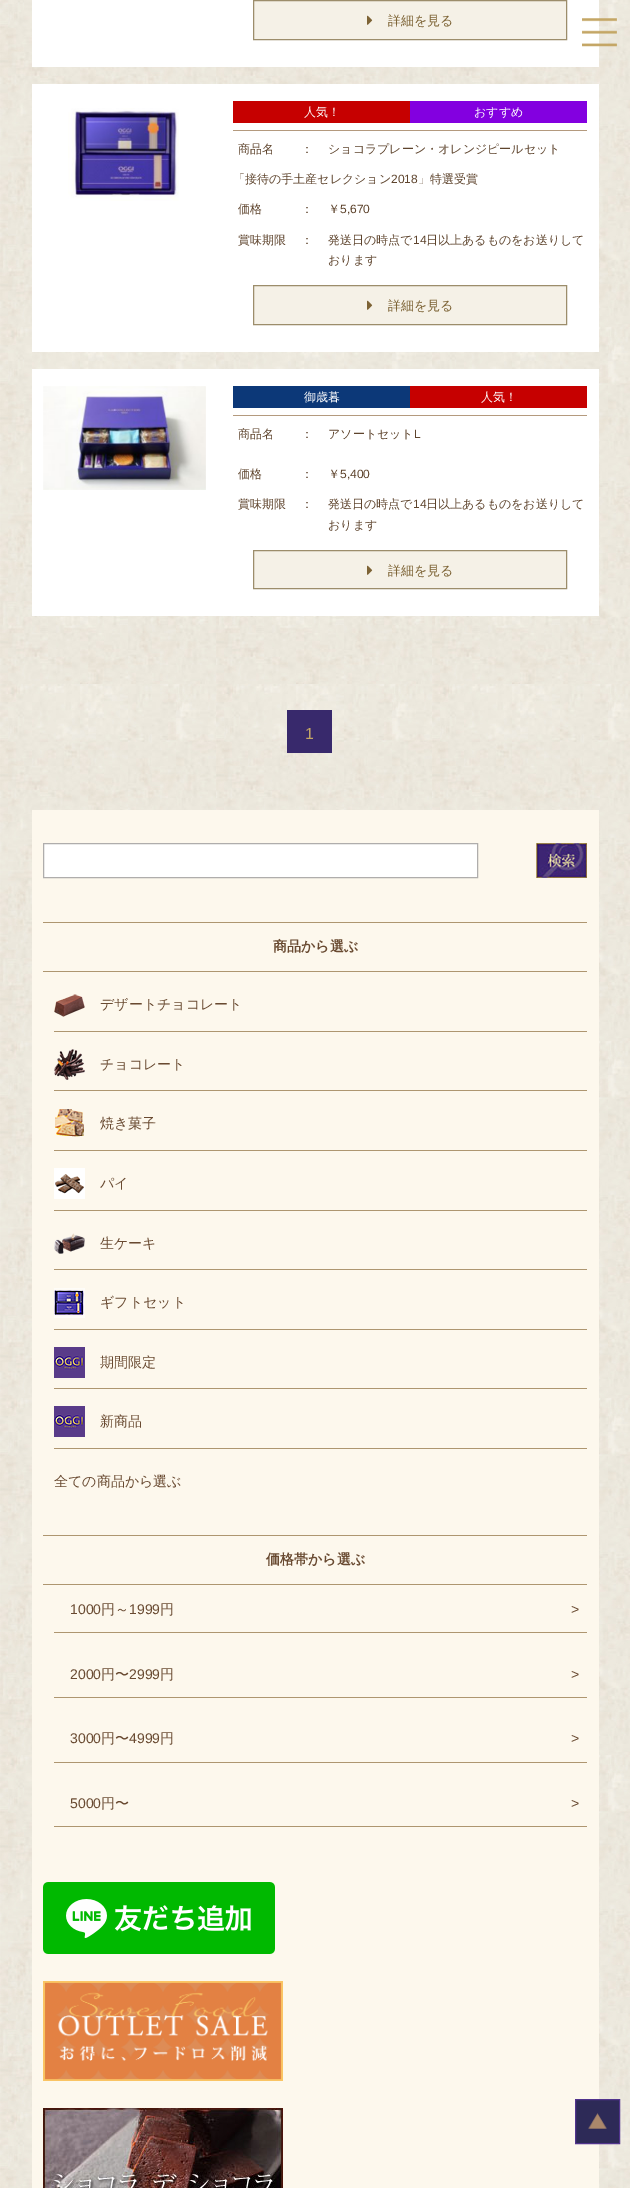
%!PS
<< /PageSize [630 2188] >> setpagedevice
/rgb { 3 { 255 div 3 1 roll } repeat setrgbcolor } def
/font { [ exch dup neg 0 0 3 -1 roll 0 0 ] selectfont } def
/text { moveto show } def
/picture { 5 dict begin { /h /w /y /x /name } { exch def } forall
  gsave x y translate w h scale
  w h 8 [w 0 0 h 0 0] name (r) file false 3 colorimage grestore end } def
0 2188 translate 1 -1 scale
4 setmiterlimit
255 255 255 rgb
0 0 630 2188 rectfill
(img_01.rgb) 0 0 630 2188 picture
32 0 567 67 rectfill
245 241 231 rgb
253.5 0.5 moveto 313 0 rlineto 0 39 rlineto -313 0 rlineto closepath gsave fill grestore
156 141 107 rgb
stroke
(img_02.rgb) 367 15 6 10 picture
255 255 255 rgb
32 84 567 268 rectfill
(img_03.rgb) 68 108 111 93 picture
198 0 0 rgb
233 101 177 22 rectfill
131 0 224 rgb
410 101 177 22 rectfill
180 154 126 rgb
233 130 354 1 rectfill
245 241 231 rgb
253.5 285.5 moveto 313 0 rlineto 0 39 rlineto -313 0 rlineto closepath gsave fill grestore
156 141 107 rgb
stroke
(img_02.rgb) 367 300 6 10 picture
255 255 255 rgb
32 369 567 247 rectfill
(img_04.rgb) 43 386 163 104 picture
12 56 120 rgb
233 386 177 22 rectfill
198 0 0 rgb
410 386 177 22 rectfill
180 154 126 rgb
233 415 354 1 rectfill
245 241 231 rgb
253.5 550.5 moveto 313 0 rlineto 0 38 rlineto -313 0 rlineto closepath gsave fill grestore
156 141 107 rgb
stroke
(img_02.rgb) 367 565 6 10 picture
56 41 108 rgb
287 710 45 43 rectfill
253 248 237 rgb
32 810 567 1378 rectfill
255 255 255 rgb
43.5 843.5 moveto 434 0 rlineto 0 34 rlineto -434 0 rlineto closepath gsave fill grestore
175 173 172 rgb
stroke
(img_05.rgb) 536 843 51 35 picture
174 150 112 rgb
43 922 544 1 rectfill
43 971 544 1 rectfill
54 1031 533 1 rectfill
(img_06.rgb) 54 994 31 23 picture
54 1090 533 1 rectfill
(img_07.rgb) 54 1049 31 31 picture
54 1150 533 1 rectfill
(img_08.rgb) 55 1109 29 28 picture
54 1210 533 1 rectfill
(img_09.rgb) 54 1168 31 31 picture
54 1269 533 1 rectfill
(img_10.rgb) 54 1233 31 21 picture
54 1329 533 1 rectfill
(img_11.rgb) 54 1288 31 30 picture
54 1388 533 1 rectfill
(img_12.rgb) 54 1347 31 31 picture
54 1448 533 1 rectfill
(img_12.rgb) 54 1406 31 31 picture
43 1535 544 1 rectfill
43 1584 544 1 rectfill
54 1632 533 1 rectfill
54 1697 533 1 rectfill
54 1762 533 1 rectfill
54 1826 533 1 rectfill
(img_13.rgb) 43 1882 232 72 picture
(img_14.rgb) 43 1981 240 100 picture
(img_15.rgb) 43 2108 240 80 picture
(img_16.rgb) 582 18 35 29 picture
45 42 87 rgb
575.5 2099.5 moveto 44 0 rlineto 0 44 rlineto -44 0 rlineto closepath gsave fill grestore
81 52 141 rgb
stroke
(img_17.rgb) 588 2113 19 16 picture
/WenQuanYiZenHei-Medium 13 font
125 99 53 rgb
(詳細を見る) 388 25 text
/WenQuanYiZenHei-Medium 12 font
255 255 255 rgb
(人気！) 304 116 text
(おすすめ) 474 116 text
94 68 45 rgb
(商品名) 238 153 text
(：) 301 153 text
(ショコラプレーン・オレンジピールセット) 328 153 text
(「接待の手土産セレクション) 233 183 text
/LiberationSans-Regular 12 font
(2018) 391 183 text
/WenQuanYiZenHei-Medium 12 font
(」特選受賞) 418 183 text
(価格) 238 213 text
(：) 301 213 text
(￥) 328 213 text
/LiberationSans-Regular 12 font
(5,670) 340 213 text
/WenQuanYiZenHei-Medium 12 font
(賞味期限) 238 244 text
(：) 301 244 text
(発送日の時点で) 328 244 text
/LiberationSans-Regular 12 font
(14) 413 244 text
/WenQuanYiZenHei-Medium 12 font
(日以上あるものをお送りして) 426 244 text
(おります) 328 264 text
/WenQuanYiZenHei-Medium 13 font
125 99 53 rgb
(詳細を見る) 388 310 text
/WenQuanYiZenHei-Medium 12 font
255 255 255 rgb
(御歳暮) 304 401 text
(人気！) 481 401 text
94 68 45 rgb
(商品名) 238 438 text
(：) 301 438 text
(アソートセット) 328 438 text
/LiberationSans-Regular 12 font
(L) 414 438 text
/WenQuanYiZenHei-Medium 12 font
(価格) 238 478 text
(：) 301 478 text
(￥) 328 478 text
/LiberationSans-Regular 12 font
(5,400) 340 478 text
/WenQuanYiZenHei-Medium 12 font
(賞味期限) 238 508 text
(：) 301 508 text
(発送日の時点で) 328 508 text
/LiberationSans-Regular 12 font
(14) 413 508 text
/WenQuanYiZenHei-Medium 12 font
(日以上あるものをお送りして) 426 508 text
(おります) 328 529 text
/WenQuanYiZenHei-Medium 13 font
125 99 53 rgb
(詳細を見る) 388 575 text
/LiberationSans-Regular 16 font
196 166 101 rgb
(1) 305 739 text
/WenQuanYiZenHei-Bold 14 font
105 74 49 rgb
(商品から選ぶ) 273 951 text
/WenQuanYiZenHei-Medium 14 font
(デザートチョコレート) 100 1009 text
(チョコレート) 100 1069 text
(焼き菓子) 100 1128 text
(パイ) 100 1188 text
(生ケーキ) 100 1248 text
(ギフトセット) 100 1307 text
(期間限定) 100 1367 text
(新商品) 100 1426 text
(全ての商品から選ぶ) 54 1486 text
/WenQuanYiZenHei-Bold 14 font
(価格帯から選ぶ) 266 1564 text
/LiberationSans-Regular 14 font
(1000) 70 1614 text
/WenQuanYiZenHei-Medium 14 font
(円～) 101 1614 text
/LiberationSans-Regular 14 font
(1999) 129 1614 text
/WenQuanYiZenHei-Medium 14 font
(円) 160 1614 text
/LiberationSans-Regular 14 font
(>) 571 1614 text
(2000) 70 1679 text
/WenQuanYiZenHei-Medium 14 font
(円〜) 101 1679 text
/LiberationSans-Regular 14 font
(2999) 129 1679 text
/WenQuanYiZenHei-Medium 14 font
(円) 160 1679 text
/LiberationSans-Regular 14 font
(>) 571 1679 text
(3000) 70 1743 text
/WenQuanYiZenHei-Medium 14 font
(円〜) 101 1743 text
/LiberationSans-Regular 14 font
(4999) 129 1743 text
/WenQuanYiZenHei-Medium 14 font
(円) 160 1743 text
/LiberationSans-Regular 14 font
(>) 571 1743 text
(5000) 70 1808 text
/WenQuanYiZenHei-Medium 14 font
(円〜) 101 1808 text
/LiberationSans-Regular 14 font
(>) 571 1808 text
showpage
